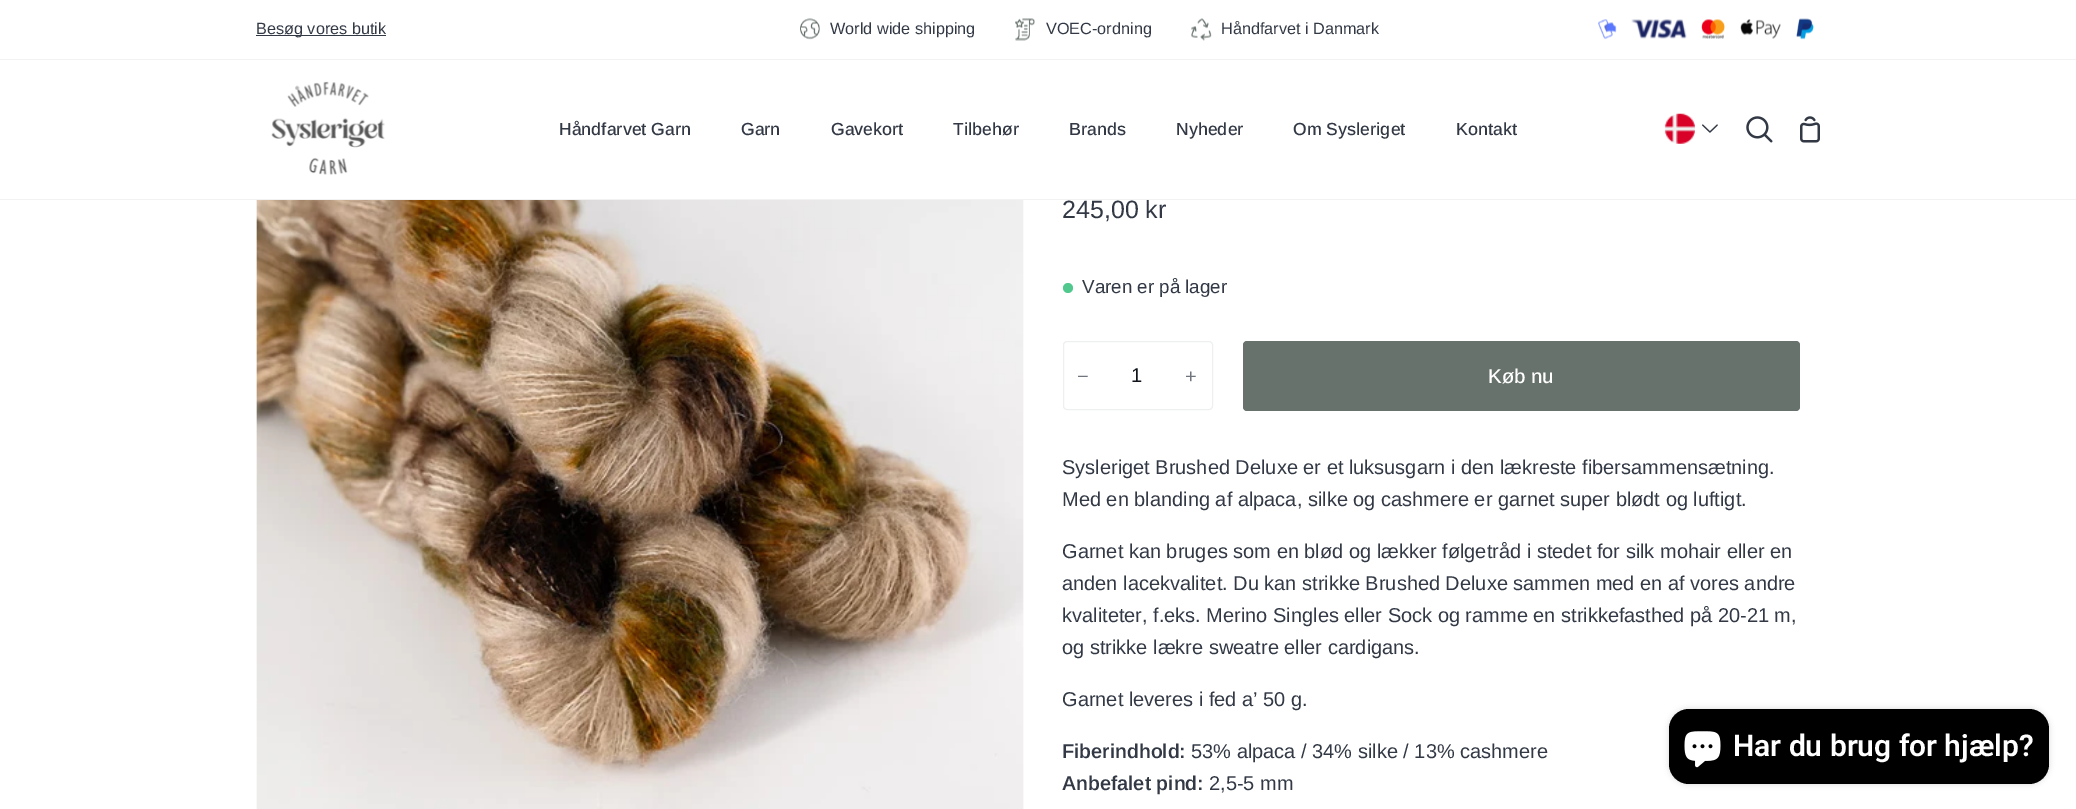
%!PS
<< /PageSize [2076 809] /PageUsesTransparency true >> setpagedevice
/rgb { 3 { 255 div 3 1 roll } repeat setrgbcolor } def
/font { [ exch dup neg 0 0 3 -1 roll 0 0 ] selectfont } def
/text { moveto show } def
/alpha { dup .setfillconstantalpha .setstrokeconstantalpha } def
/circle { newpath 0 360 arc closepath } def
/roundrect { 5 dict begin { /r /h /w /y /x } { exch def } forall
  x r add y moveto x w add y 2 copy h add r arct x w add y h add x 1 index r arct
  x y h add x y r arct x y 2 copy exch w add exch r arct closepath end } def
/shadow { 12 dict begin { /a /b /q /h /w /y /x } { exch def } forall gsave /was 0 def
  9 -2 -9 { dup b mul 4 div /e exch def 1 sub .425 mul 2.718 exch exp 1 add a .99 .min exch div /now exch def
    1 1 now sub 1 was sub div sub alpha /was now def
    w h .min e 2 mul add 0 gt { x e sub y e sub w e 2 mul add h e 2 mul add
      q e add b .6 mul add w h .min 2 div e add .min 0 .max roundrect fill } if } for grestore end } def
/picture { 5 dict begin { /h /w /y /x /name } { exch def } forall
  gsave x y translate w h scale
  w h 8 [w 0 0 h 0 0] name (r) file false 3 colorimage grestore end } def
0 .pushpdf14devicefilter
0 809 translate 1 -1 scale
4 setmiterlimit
255 255 255 rgb
0 0 2076 809 rectfill
242 242 242 rgb
0 59 2076 1 rectfill
50 57 69 rgb
256 35 130 1 rectfill
(img_01.rgb) 800 18 20 22 picture
(img_02.rgb) 1015 18 20 23 picture
(img_03.rgb) 1191 18 21 23 picture
(img_04.rgb) 1598 19 19 21 picture
(img_05.rgb) 1631 19 56 20 picture
(img_06.rgb) 1701 19 24 20 picture
(img_07.rgb) 1740 19 41 20 picture
(img_08.rgb) 1796 18 18 22 picture
(img_09.rgb) 271 81 114 94 picture
(img_10.rgb) 1664 113 31 31 picture
(img_11.rgb) 1702 124 16 9 picture
(img_12.rgb) 1746 116 27 27 picture
(img_13.rgb) 1800 116 20 27 picture
(img_14.rgb) 256 200 768 609 picture
81 200 142 rgb
1068 288 5 circle fill
238 239 241 rgb
1063.5 341.5 149 68 3.5 roundrect stroke
103 114 108 rgb
1243 341 557 70 4 roundrect fill
0 0 0 rgb
1669 709 380 75 20 3 0.15 shadow
1669 709 380 75 20 roundrect fill
(img_15.rgb) 1684 731 37 37 picture
/Arimo-Regular 16.25 font
50 57 69 rgb
(Besøg vores butik) 256 34 text
(World wide shipping) 830 34 text
(VOEC-ordning) 1046 34 text
(Håndfarvet i Danmark) 1221 34 text
/Arimo-Medium 17.5 font
(Håndfarvet Garn) 559 135 text
(Garn) 741 135 text
(Gavekort) 831 135 text
(Tilbehør) 953 135 text
(Brands) 1069 135 text
(Nyheder) 1176 135 text
(Om Sysleriget) 1293 135 text
(Kontakt) 1456 135 text
/Arimo-Regular 25 font
(245,00 kr) 1062 218 text
242 242 242 rgb
0 199 2076 1 rectfill
/Arimo-Regular 18.75 font
50 57 69 rgb
(Varen er på lager) 1082 293 text
/LiberationSans-Regular 20 font
112 116 125 rgb
(−) 1077 383 text
/Arimo-Regular 20 font
16 20 27 rgb
(1) 1131 382 text
112 116 125 rgb
(+) 1185 383 text
/Arimo-Medium 20 font
255 255 255 rgb
(Køb nu) 1488 383 text
/Arimo-Regular 20 font
50 57 69 rgb
(Sysleriget Brushed Deluxe er et luksusgarn i den lækreste fibersammensætning.) 1062 474 text
(Med en blanding af alpaca, silke og cashmere er garnet super blødt og luftigt.) 1062 506 text
(Garnet kan bruges som en blød og lækker følgetråd i stedet for silk mohair eller en) 1062 558 text
(anden lacekvalitet. Du kan strikke Brushed Deluxe sammen med en af vores andre) 1062 590 text
(kvaliteter, f.eks. Merino Singles eller Sock og ramme en strikkefasthed på 20-21 m,) 1062 622 text
(og strikke lækre sweatre eller cardigans.) 1062 654 text
(Garnet leveres i fed a’ 50 g.) 1062 706 text
/Arimo-SemiBold 20 font
(Fiberindhold:) 1062 758 text
/Arimo-Regular 20 font
(53% alpaca / 34% silke / 13% cashmere) 1191 758 text
/Arimo-SemiBold 20 font
(Anbefalet pind:) 1062 790 text
/Arimo-Regular 20 font
(2,5-5 mm) 1209 790 text
/Roboto-SemiBold 30 font
255 255 255 rgb
(Har du brug for hjælp?) 1733 756 text
.poppdf14devicefilter showpage
